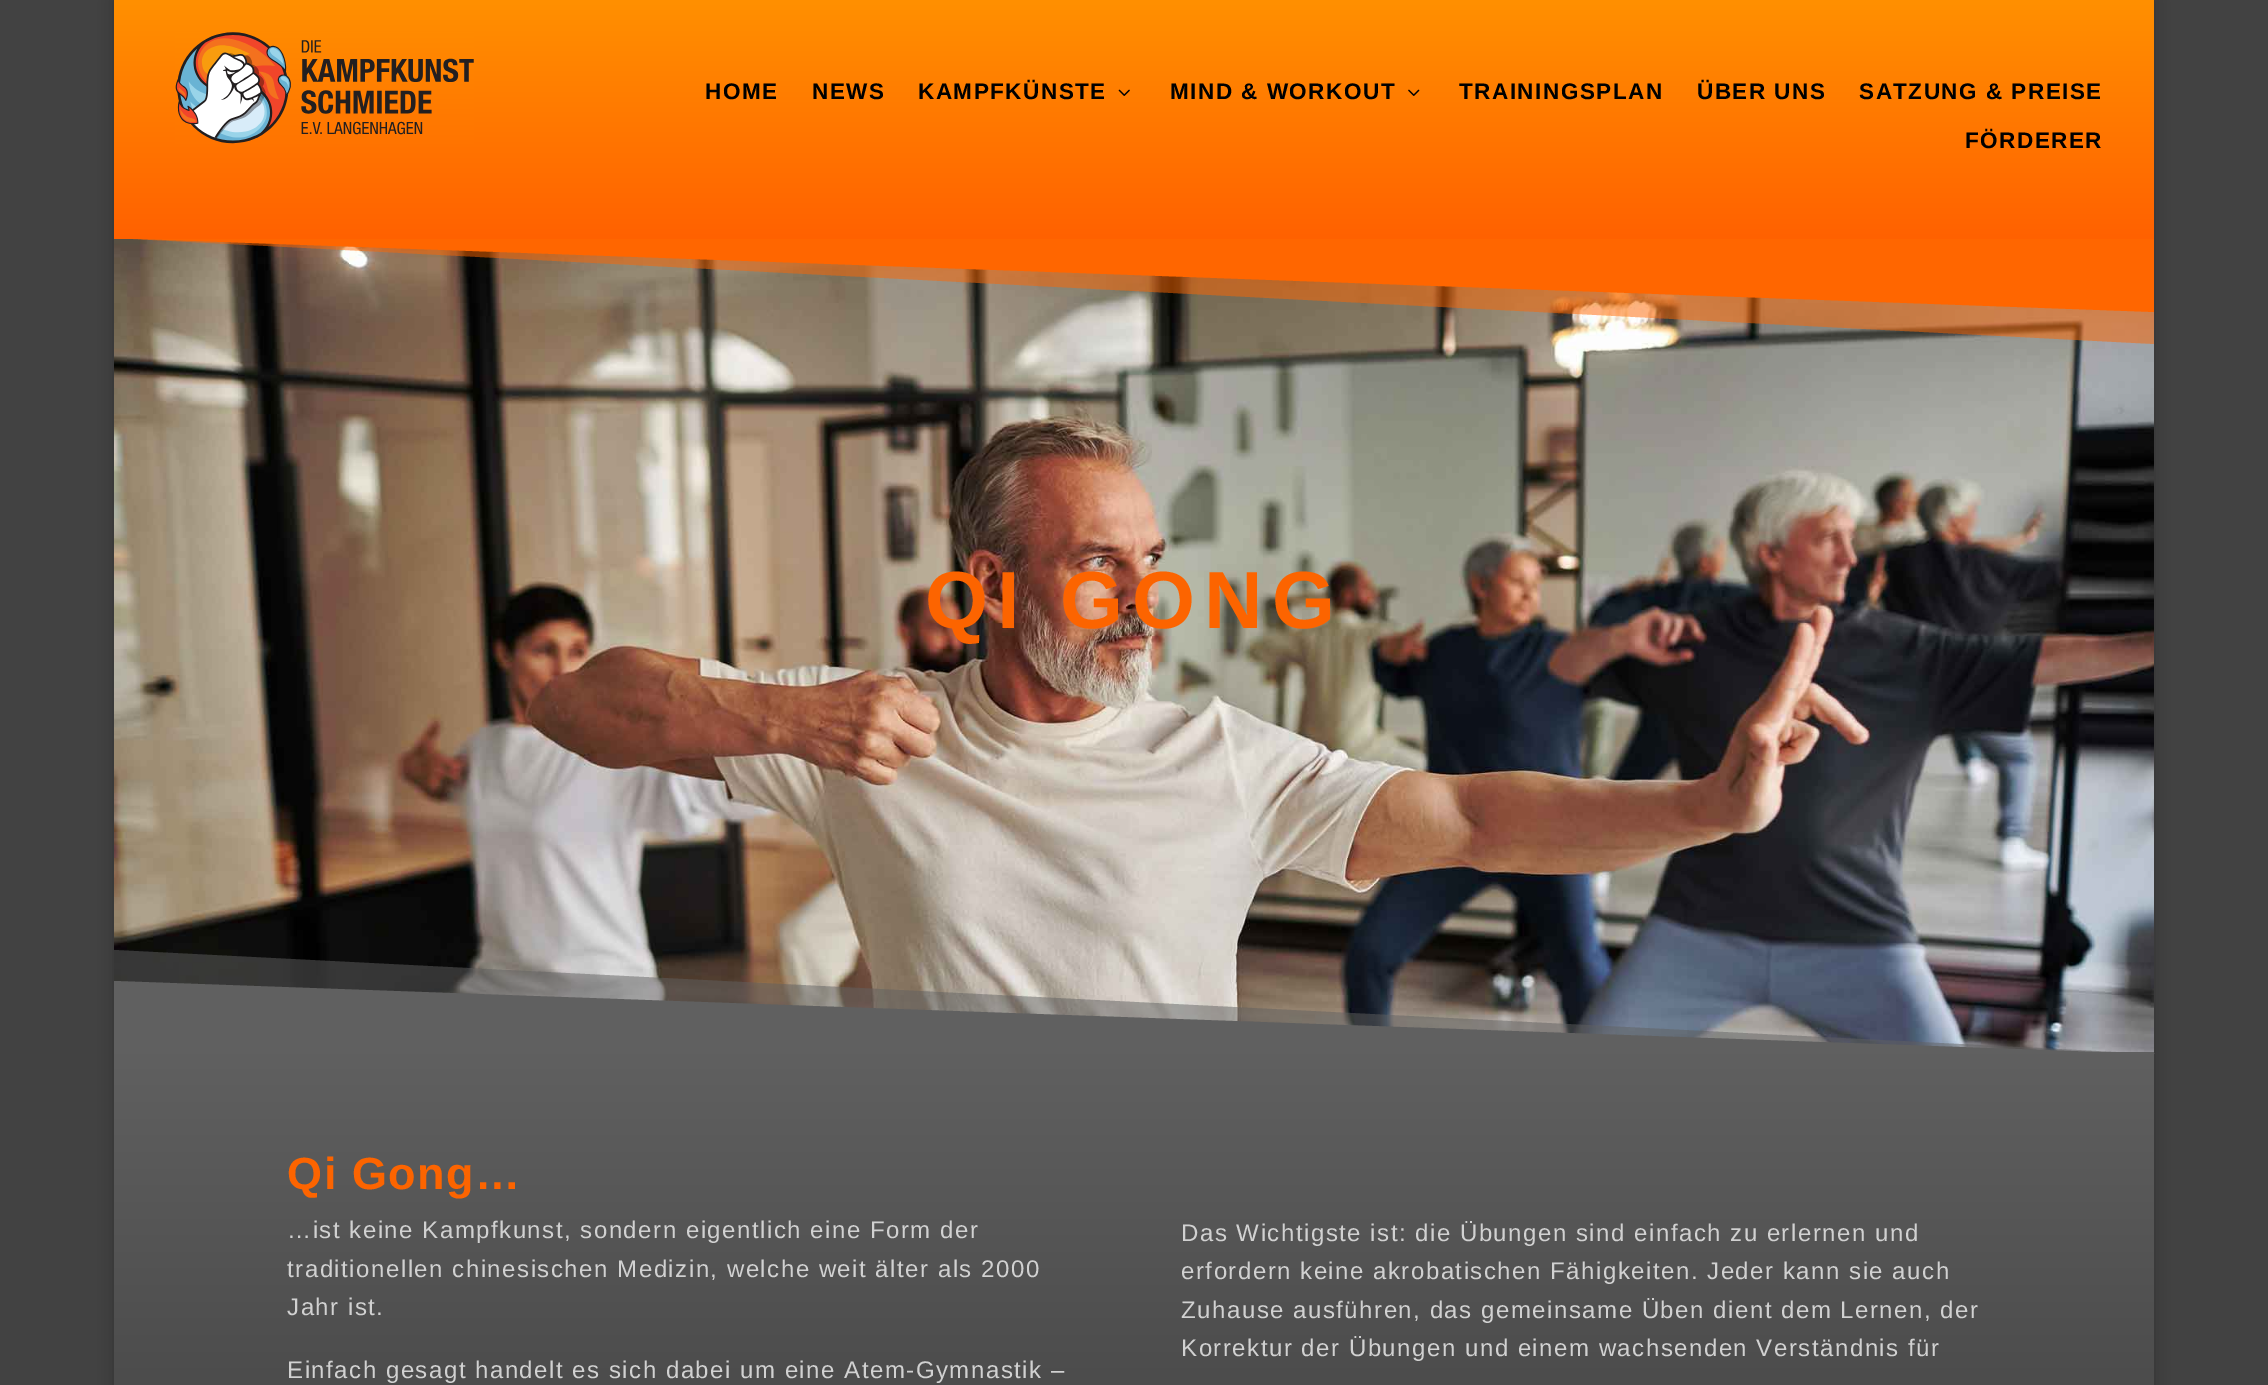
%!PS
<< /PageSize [2268 1385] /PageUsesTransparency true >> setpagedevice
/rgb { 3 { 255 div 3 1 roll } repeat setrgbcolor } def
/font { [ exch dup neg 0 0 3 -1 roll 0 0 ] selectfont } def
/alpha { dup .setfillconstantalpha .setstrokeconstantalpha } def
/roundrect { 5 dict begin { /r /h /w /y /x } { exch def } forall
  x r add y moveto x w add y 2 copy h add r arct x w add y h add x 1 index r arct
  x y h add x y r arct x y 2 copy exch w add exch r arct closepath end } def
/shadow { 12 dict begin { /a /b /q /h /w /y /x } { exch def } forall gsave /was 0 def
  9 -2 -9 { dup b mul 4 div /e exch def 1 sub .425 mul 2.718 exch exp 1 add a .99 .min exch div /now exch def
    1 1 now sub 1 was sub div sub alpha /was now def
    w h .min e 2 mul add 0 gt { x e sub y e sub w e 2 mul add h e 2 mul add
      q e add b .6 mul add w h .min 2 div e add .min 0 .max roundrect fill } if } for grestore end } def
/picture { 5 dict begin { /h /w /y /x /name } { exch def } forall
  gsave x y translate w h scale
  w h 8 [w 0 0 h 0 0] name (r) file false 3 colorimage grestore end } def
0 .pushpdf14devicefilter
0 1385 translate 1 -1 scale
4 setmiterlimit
66 66 66 rgb
0 0 2268 1385 rectfill
0 0 0 rgb
114 0 2040 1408 0 7.5 0.2 shadow
gsave 114 0 moveto 2040 0 rlineto 0 239 rlineto -2040 0 rlineto closepath clip newpath
<< /ShadingType 2 /ColorSpace /DeviceRGB /Coords [1134 0 1134 239] /Extend [true true] /Function << /FunctionType 2 /Domain [0 1] /C0 [1 0.565 0] /C1 [1 0.38 0] /N 1 >> >> shfill grestore
(img_01.rgb) 175 32 299 112 picture
(img_02.rgb) 1118 89 12 7 picture
(img_03.rgb) 1408 89 12 7 picture
(img_04.rgb) 114 239 2040 813 picture
gsave
114 239 2040 105 rectclip
0.5 alpha
255 102 0 rgb
2155 344 moveto 0 -106 rlineto -2041 0 rlineto closepath fill
1 alpha
2155 312 moveto 0 -74 rlineto -2041 0 rlineto closepath fill
grestore
gsave 114 1052 moveto 2040 0 rlineto 0 333 rlineto -2040 0 rlineto closepath clip newpath
<< /ShadingType 2 /ColorSpace /DeviceRGB /Coords [1134 1052 1134 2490] /Extend [true true] /Function << /FunctionType 2 /Domain [0 1] /C0 [0.376 0.376 0.376] /C1 [0.039 0.039 0.039] /N 1 >> >> shfill grestore
0.5 alpha
96 96 96 rgb
114 950 moveto 0 104 rlineto 2041 0 rlineto closepath fill
1 alpha
114 981 moveto 0 73 rlineto 2041 0 rlineto closepath fill
/LiberationSans-Bold 22.5 font
0 0 0 rgb
705 99 moveto 1.5 0 (HOME) ashow
812 99 moveto 1.5 0 (NEWS) ashow
918 99 moveto 1.5 0 (KAMPFKÜNSTE) ashow
1170 99 moveto 1.5 0 (MIND & WORKOUT) ashow
1459 99 moveto 1.5 0 (TRAININGSPLAN) ashow
1697 99 moveto 1.5 0 (ÜBER UNS) ashow
1859 99 moveto 1.5 0 (SATZUNG & PREISE) ashow
1965 148 moveto 1.5 0 (FÖRDERER) ashow
/LiberationSans-Bold 81 font
252 100 0 rgb
925 628 moveto 9 0 (QI GONG) ashow
/LiberationSans-Bold 45 font
287 1189 moveto 1.5 0 (Qi Gong…) ashow
/LiberationSans-Regular 24 font
209 209 209 rgb
287 1238 moveto 1.5 0 (…ist keine Kampfkunst, sondern eigentlich eine Form der) ashow
287 1277 moveto 1.5 0 (traditionellen chinesischen Medizin, welche weit älter als 2000) ashow
287 1315 moveto 1.5 0 (Jahr ist.) ashow
287 1378 moveto 1.5 0 (Einfach gesagt handelt es sich dabei um eine Atem-Gymnastik –) ashow
1181 1241 moveto 1.5 0 (Das Wichtigste ist: die Übungen sind einfach zu erlernen und) ashow
1181 1279 moveto 1.5 0 (erfordern keine akrobatischen Fähigkeiten. Jeder kann sie auch) ashow
1181 1318 moveto 1.5 0 (Zuhause ausführen, das gemeinsame Üben dient dem Lernen, der) ashow
1181 1356 moveto 1.5 0 (Korrektur der Übungen und einem wachsenden Verständnis für) ashow
.poppdf14devicefilter showpage
